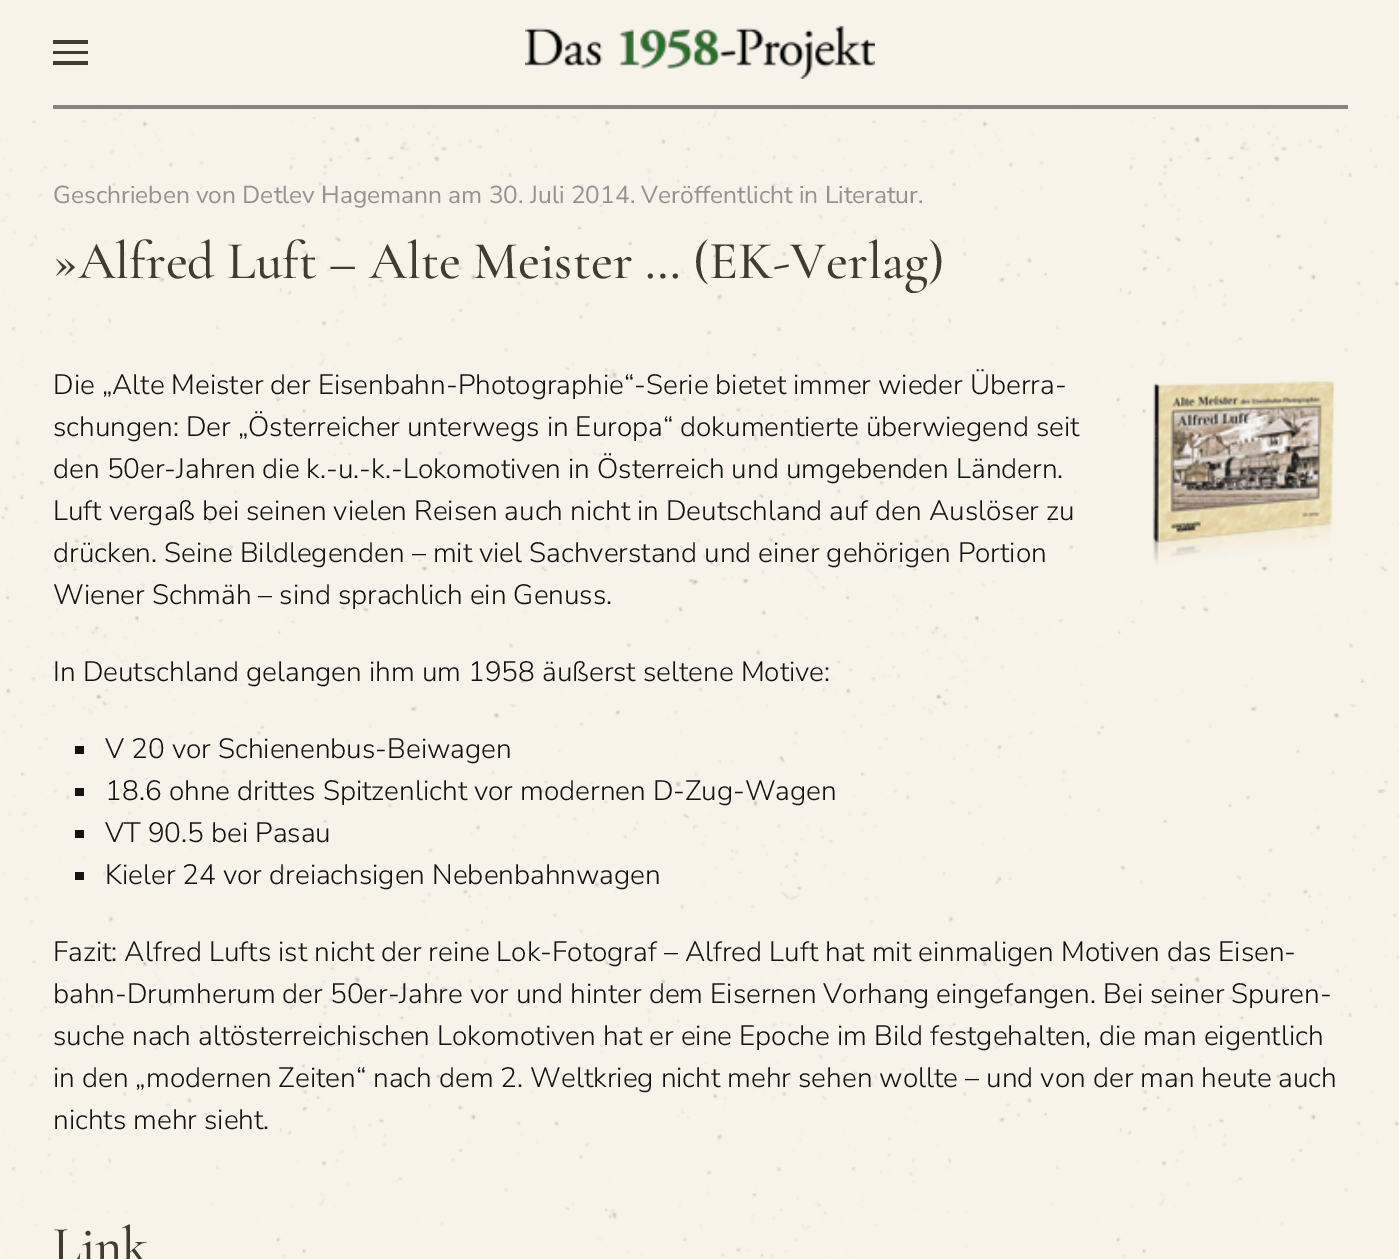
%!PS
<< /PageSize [1399 1259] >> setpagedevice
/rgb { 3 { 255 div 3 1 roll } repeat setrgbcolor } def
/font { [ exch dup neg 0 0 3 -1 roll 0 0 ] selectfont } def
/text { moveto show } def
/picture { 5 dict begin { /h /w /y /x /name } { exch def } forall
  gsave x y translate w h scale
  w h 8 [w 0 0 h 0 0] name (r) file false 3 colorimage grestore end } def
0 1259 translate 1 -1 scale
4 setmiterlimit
247 243 233 rgb
0 0 1399 1259 rectfill
136 131 127 rgb
53 105 1295 4 rectfill
64 60 50 rgb
53 40 35 4 rectfill
53 51 35 3 rectfill
53 61 35 4 rectfill
(img_01.rgb) 525 26 350 53 picture
(img_02.rgb) 0 109 1399 1150 picture
(img_03.rgb) 1152 381 182 184 picture
20 20 20 rgb
75 746 9 8 rectfill
75 788 9 8 rectfill
75 830 9 8 rectfill
75 872 9 8 rectfill
/NunitoSans-ExtraLight 24.5 font
152 146 142 rgb
(Geschrieben von Detlev Hagemann am 30. Juli 2014. Veröffentlicht in Literatur.) 53 203 text
/CormorantGaramond-Light 53.5 font
64 60 50 rgb
53 278 moveto -0.25 0 32 (»Alfred Luft – Alte Meister … \(EK-Verlag\)) widthshow
/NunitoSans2-ExtraLight 28 font
20 20 20 rgb
(Die „Alte Meister der Eisenbahn-Photographie“-Serie bietet immer wieder Überra-) 53 394 text
(schungen: Der „Österreicher unterwegs in Europa“ dokumentierte überwiegend seit) 53 436 text
(den 50er-Jahren die k.-u.-k.-Lokomotiven in Österreich und umgebenden Ländern.) 53 478 text
(Luft vergaß bei seinen vielen Reisen auch nicht in Deutschland auf den Auslöser zu) 53 520 text
(drücken. Seine Bildlegenden – mit viel Sachverstand und einer gehörigen Portion) 53 562 text
(Wiener Schmäh – sind sprachlich ein Genuss.) 53 604 text
(In Deutschland gelangen ihm um 1958 äußerst seltene Motive:) 53 681 text
(V 20 vor Schienenbus-Beiwagen) 105 758 text
(18.6 ohne drittes Spitzenlicht vor modernen D-Zug-Wagen) 105 800 text
(VT 90.5 bei Pasau) 105 842 text
(Kieler 24 vor dreiachsigen Nebenbahnwagen) 105 884 text
(Fazit: Alfred Lufts ist nicht der reine Lok-Fotograf – Alfred Luft hat mit einmaligen Motiven das Eisen-) 53 961 text
(bahn-Drumherum der 50er-Jahre vor und hinter dem Eisernen Vorhang eingefangen. Bei seiner Spuren-) 53 1003 text
(suche nach altösterreichischen Lokomotiven hat er eine Epoche im Bild festgehalten, die man eigentlich) 53 1045 text
(in den „modernen Zeiten“ nach dem 2. Weltkrieg nicht mehr sehen wollte – und von der man heute auch) 53 1087 text
(nichts mehr sieht.) 53 1129 text
/CormorantGaramond-Light 52 font
64 60 50 rgb
(Link) 53 1262 text
showpage
